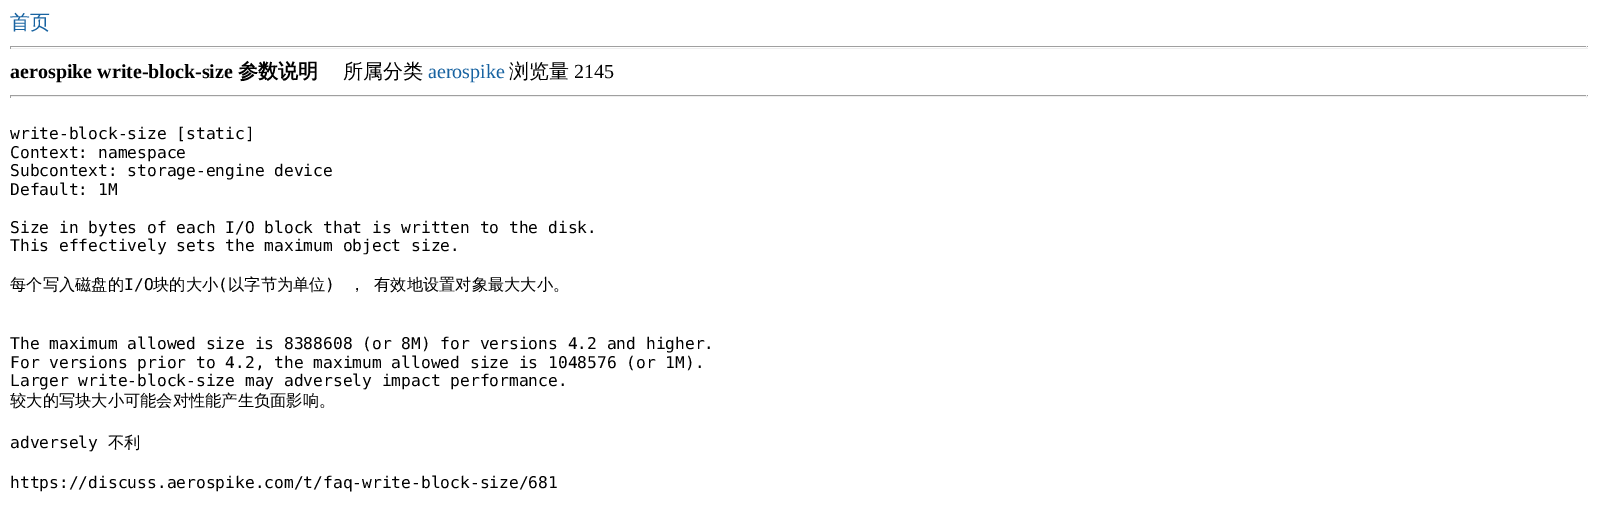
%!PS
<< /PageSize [1597 517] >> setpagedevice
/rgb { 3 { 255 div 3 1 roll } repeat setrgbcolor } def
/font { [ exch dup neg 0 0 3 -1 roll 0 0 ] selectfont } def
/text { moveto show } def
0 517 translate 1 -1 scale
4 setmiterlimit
255 255 255 rgb
0 0 1597 517 rectfill
159 159 159 rgb
10 46 1578 1 rectfill
238 238 238 rgb
1586 46 1 3 rectfill
10 48 1578 1 rectfill
159 159 159 rgb
10 46 1 3 rectfill
10 95 1578 1 rectfill
238 238 238 rgb
1586 95 1 3 rectfill
10 96 1578 1 rectfill
159 159 159 rgb
10 95 1 3 rectfill
/WenQuanYiZenHei-Medium 20 font
24 99 161 rgb
(首页) 10 29 text
/LiberationSerif-Bold 20 font
0 0 0 rgb
(aerospike write-block-size) 10 78 text
/WenQuanYiZenHei-Bold 20 font
(参数说明) 238 78 text
/WenQuanYiZenHei-Medium 20 font
(所属分类) 343 78 text
/LiberationSerif-Regular 20 font
24 99 161 rgb
(aerospike) 428 78 text
/WenQuanYiZenHei-Medium 20 font
0 0 0 rgb
(浏览量) 509 78 text
/LiberationSerif-Regular 20 font
(2145) 574 78 text
/DejaVuSansMono-Regular 16.25 font
(write-block-size [static]) 10 139 text
(Context: namespace) 10 158 text
(Subcontext: storage-engine device) 10 176 text
(Default: 1M) 10 195 text
(Size in bytes of each I/O block that is written to the disk.) 10 233 text
(This effectively sets the maximum object size.) 10 251 text
/WenQuanYiZenHei-Medium 16.25 font
(每个写入磁盘的) 10 290 text
/DejaVuSansMono-Regular 16.25 font
(I/O) 124 290 text
/WenQuanYiZenHei-Medium 16.25 font
(块的大小) 153 290 text
/DejaVuSansMono-Regular 16.25 font
(\() 218 290 text
/WenQuanYiZenHei-Medium 16.25 font
(以字节为单位) 228 290 text
/DejaVuSansMono-Regular 16.25 font
(\)) 325 290 text
/WenQuanYiZenHei-Medium 16.25 font
349 290 moveto 4 0 32 (， 有效地设置对象最大大小。) widthshow
/DejaVuSansMono-Regular 16.25 font
(The maximum allowed size is 8388608 \(or 8M\) for versions 4.2 and higher.) 10 349 text
(For versions prior to 4.2, the maximum allowed size is 1048576 \(or 1M\).) 10 368 text
(Larger write-block-size may adversely impact performance.) 10 386 text
/WenQuanYiZenHei-Medium 16.25 font
(较大的写块大小可能会对性能产生负面影响。) 10 406 text
/DejaVuSansMono-Regular 16.25 font
(adversely) 10 448 text
/WenQuanYiZenHei-Medium 16.25 font
(不利) 108 448 text
/DejaVuSansMono-Regular 16.25 font
(https://discuss.aerospike.com/t/faq-write-block-size/681) 10 488 text
showpage
